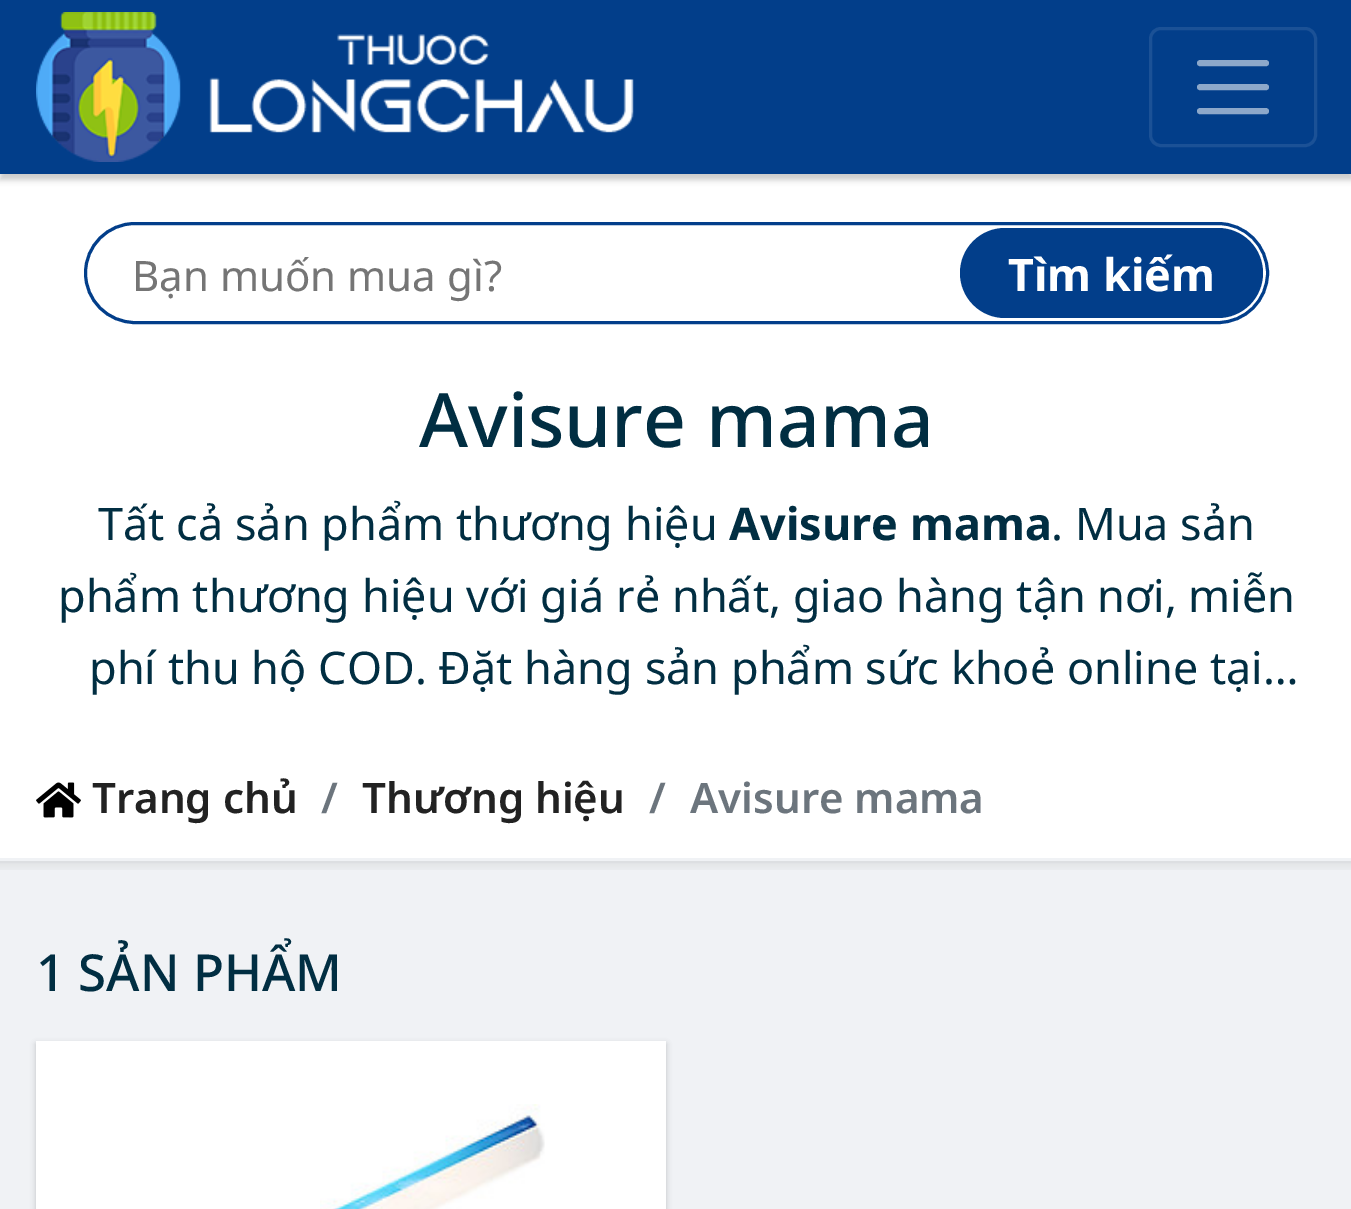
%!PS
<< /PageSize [1351 1209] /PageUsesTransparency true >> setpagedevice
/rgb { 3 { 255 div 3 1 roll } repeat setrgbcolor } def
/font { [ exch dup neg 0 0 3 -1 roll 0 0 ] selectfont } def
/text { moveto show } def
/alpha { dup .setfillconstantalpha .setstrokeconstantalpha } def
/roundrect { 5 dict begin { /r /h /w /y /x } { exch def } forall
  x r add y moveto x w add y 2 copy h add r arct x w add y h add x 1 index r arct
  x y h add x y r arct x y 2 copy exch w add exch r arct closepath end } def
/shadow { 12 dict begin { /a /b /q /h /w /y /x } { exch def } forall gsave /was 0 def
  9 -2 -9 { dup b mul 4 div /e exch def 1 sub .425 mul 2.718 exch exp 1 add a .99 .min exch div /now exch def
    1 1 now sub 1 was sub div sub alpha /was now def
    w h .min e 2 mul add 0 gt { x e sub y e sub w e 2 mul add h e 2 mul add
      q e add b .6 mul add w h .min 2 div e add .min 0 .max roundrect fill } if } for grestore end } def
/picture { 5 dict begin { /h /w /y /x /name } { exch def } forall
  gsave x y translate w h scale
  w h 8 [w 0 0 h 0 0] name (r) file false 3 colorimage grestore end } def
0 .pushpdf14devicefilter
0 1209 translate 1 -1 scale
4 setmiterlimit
240 242 245 rgb
0 0 1351 1209 rectfill
255 255 255 rgb
0 174 1351 684 rectfill
0 0 0 rgb
0 6 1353 174 0 3 0.2 shadow
2 62 138 rgb
0 0 1351 174 rectfill
(img_01.rgb) 36 12 598 150 picture
27 81 150 rgb
3 setlinewidth
1150.5 28.5 165 117 10.5 roundrect stroke
141 168 202 rgb
6 setlinewidth
1 setlinecap
1200 63 moveto 66 0 rlineto 1200 87 moveto 66 0 rlineto 1200 111 moveto 66 0 rlineto stroke
2 62 138 rgb
3 setlinewidth
0 setlinecap
85.5 223.5 1182 99 49.5 roundrect stroke
960 228 303 90 45 roundrect fill
(img_02.rgb) 36 782 45 36 picture
(img_03.rgb) 0 861 1351 9 picture
0 0 0 rgb
36 1044 630 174 0 3 0.2 shadow
255 255 255 rgb
36 1041 630 168 rectfill
(img_04.rgb) 320 1104 225 105 picture
/NotoSans-Regular 42 font
117 117 117 rgb
(Bạn muốn mua gì?) 132 291 text
/NotoSans-Bold 45 font
255 255 255 rgb
(Tìm kiếm) 1008 291 text
/NotoSans-Medium 75 font
1 46 66 rgb
(Avisure mama) 419 447 text
/NotoSans-Regular 45 font
(Tất cả sản phẩm thương hiệu) 98 540 text
/NotoSans-Bold 45 font
(Avisure mama) 729 540 text
/NotoSans-Regular 45 font
(. Mua sản) 1051 540 text
(phẩm thương hiệu với giá rẻ nhất, giao hàng tận nơi, miễn) 58 612 text
(phí thu hộ COD. Đặt hàng sản phẩm sức khoẻ online tại…) 89 684 text
/NotoSans-SemiBold 42 font
34 34 34 rgb
(Trang chủ) 92 813 text
108 117 125 rgb
(/) 321 813 text
34 34 34 rgb
(Thương hiệu) 362 813 text
108 117 125 rgb
(/) 649 813 text
(Avisure mama) 690 813 text
/NotoSans-Medium 51 font
1 46 66 rgb
(1 SẢN PHẨM) 36 991 text
.poppdf14devicefilter showpage
